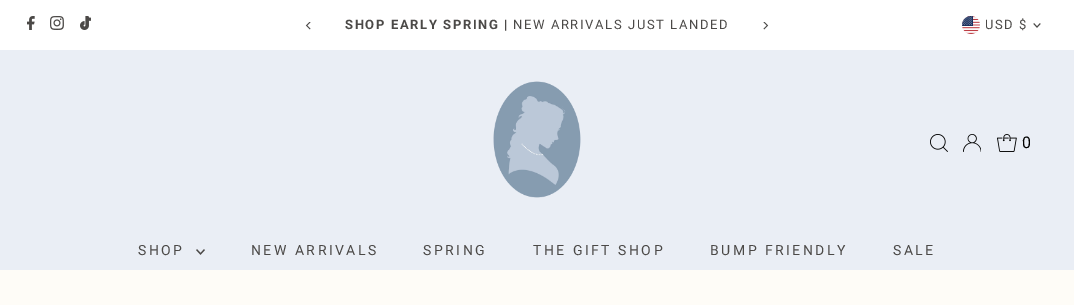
%!PS
<< /PageSize [1074 305] >> setpagedevice
/rgb { 3 { 255 div 3 1 roll } repeat setrgbcolor } def
/font { [ exch dup neg 0 0 3 -1 roll 0 0 ] selectfont } def
/picture { 5 dict begin { /h /w /y /x /name } { exch def } forall
  gsave x y translate w h scale
  w h 8 [w 0 0 h 0 0] name (r) file false 3 colorimage grestore end } def
0 305 translate 1 -1 scale
4 setmiterlimit
254 252 247 rgb
0 0 1074 305 rectfill
255 255 255 rgb
0 0 1074 50 rectfill
(img_01.rgb) 27 16 8 14 picture
(img_02.rgb) 50 16 14 14 picture
(img_03.rgb) 80 16 11 14 picture
(img_04.rgb) 305 22 6 8 picture
(img_05.rgb) 763 22 6 8 picture
(img_06.rgb) 962 16 18 18 picture
(img_07.rgb) 1033 23 8 5 picture
234 238 245 rgb
0 50 1074 220 rectfill
(img_08.rgb) 493 81 88 117 picture
(img_09.rgb) 930 134 18 18 picture
(img_10.rgb) 963 134 18 18 picture
(img_11.rgb) 997 134 20 18 picture
(img_12.rgb) 196 249 9 6 picture
/Roboto-Bold 13 font
75 73 71 rgb
345 29 moveto 1.6 0 (SHOP EARLY SPRING |) ashow
/Roboto-Regular 13 font
513 29 moveto 1.6 0 (NEW ARRIVALS JUST LANDED) ashow
985 29 moveto 1.5 0 (USD $) ashow
/Roboto-Regular 16 font
0 0 0 rgb
1022 148 moveto 1.6 0 (0) ashow
/Roboto-Regular 14 font
75 73 71 rgb
138 255 moveto 2.5 0 (SHOP) ashow
251 255 moveto 2.5 0 (NEW ARRIVALS) ashow
423 255 moveto 2.5 0 (SPRING) ashow
533 255 moveto 2.5 0 (THE GIFT SHOP) ashow
710 255 moveto 2.5 0 (BUMP FRIENDLY) ashow
893 255 moveto 2.5 0 (SALE) ashow
showpage
